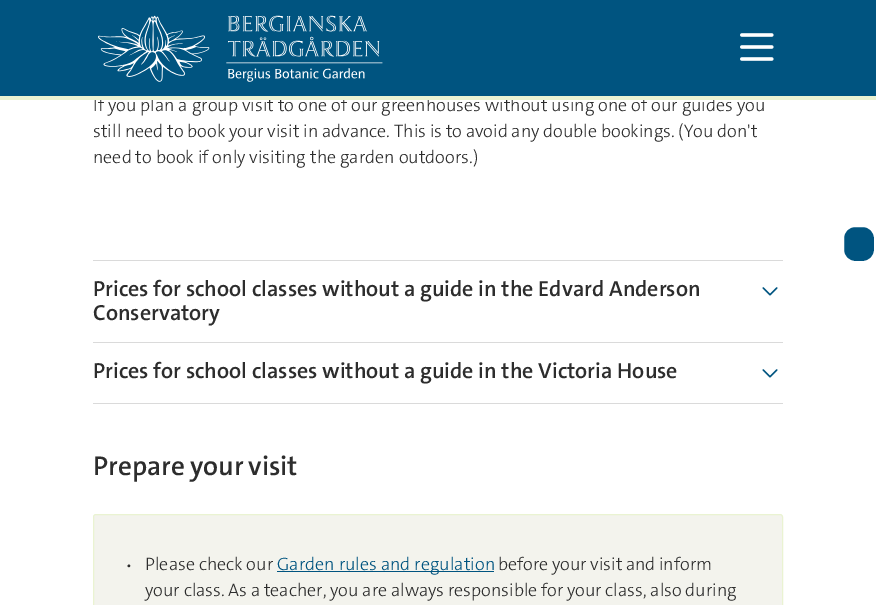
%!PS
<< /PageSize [876 605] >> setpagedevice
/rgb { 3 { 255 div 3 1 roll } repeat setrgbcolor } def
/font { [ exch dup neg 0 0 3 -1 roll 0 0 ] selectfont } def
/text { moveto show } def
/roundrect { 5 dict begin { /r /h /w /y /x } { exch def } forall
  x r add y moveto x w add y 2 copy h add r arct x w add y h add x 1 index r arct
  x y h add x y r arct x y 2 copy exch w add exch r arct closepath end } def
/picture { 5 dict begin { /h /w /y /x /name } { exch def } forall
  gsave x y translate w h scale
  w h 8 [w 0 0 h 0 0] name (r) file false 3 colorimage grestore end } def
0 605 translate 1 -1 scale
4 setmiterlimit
255 255 255 rgb
0 0 876 605 rectfill
0 84 128 rgb
0 0 876 96 rectfill
(img_01.rgb) 98 15 285 67 picture
(img_02.rgb) 740 33 34 28 picture
218 218 218 rgb
93 260 690 1 rectfill
93 342 690 1 rectfill
(img_03.rgb) 762 287 16 9 picture
93 403 690 1 rectfill
(img_03.rgb) 762 369 16 9 picture
243 243 237 rgb
93.5 514.5 689 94 2.5 roundrect gsave fill grestore
234 243 210 rgb
stroke
0 84 128 rgb
277 571 217 1 rectfill
843 226 32 36 12 roundrect gsave fill grestore
255 255 255 rgb
2 setlinewidth
stroke
/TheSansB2-Light 18 font
45 45 45 rgb
(If you plan a group visit to one of our greenhouses without using one of our guides you) 93 111 text
234 243 210 rgb
0 96 876 4 rectfill
45 45 45 rgb
93 137 moveto -0.25 0 32 (still need to book your visit in advance. This is to avoid any double bookings. \(You don't) widthshow
(need to book if only visiting the garden outdoors.\)) 93 163 text
/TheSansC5-SemiBold 22 font
93 296 moveto -0.1 0 32 (Prices for school classes without a guide in the Edvard Anderson) widthshow
(Conservatory) 93 320 text
93 378 moveto -0.1 0 32 (Prices for school classes without a guide in the Victoria House) widthshow
/TheSansC5-SemiBold 27.25 font
93 475 moveto -1 0 32 (Prepare your visit) widthshow
/TheSansB2-Light 14 font
(•) 126 570 text
/TheSansB2-Light 18 font
(Please check our) 145 570 text
0 84 128 rgb
(Garden rules and regulation) 277 570 text
45 45 45 rgb
498 570 moveto -0.5 0 32 (before your visit and inform) widthshow
145 596 moveto -0.25 0 32 (your class. As a teacher, you are always responsible for your class, also during) widthshow
showpage
